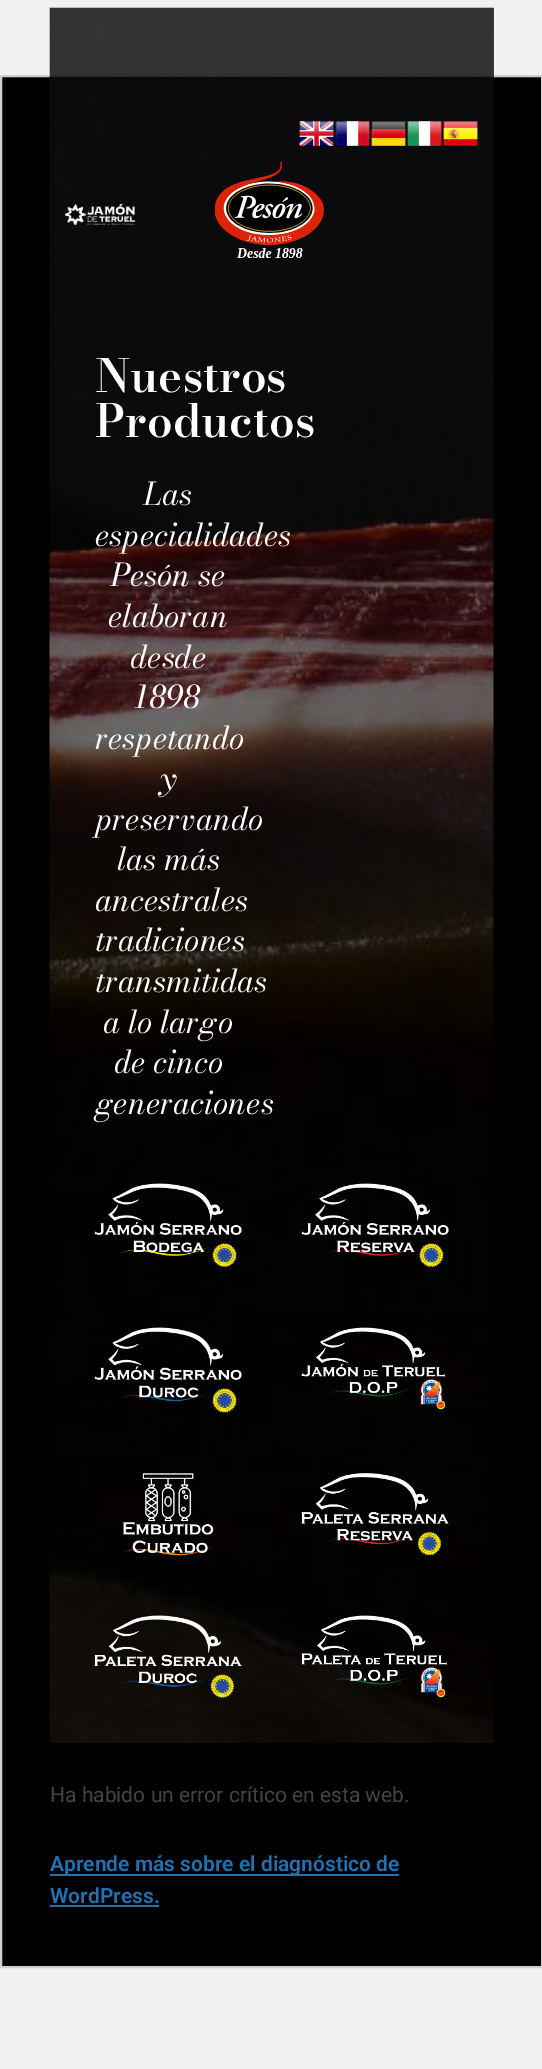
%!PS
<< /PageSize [542 2069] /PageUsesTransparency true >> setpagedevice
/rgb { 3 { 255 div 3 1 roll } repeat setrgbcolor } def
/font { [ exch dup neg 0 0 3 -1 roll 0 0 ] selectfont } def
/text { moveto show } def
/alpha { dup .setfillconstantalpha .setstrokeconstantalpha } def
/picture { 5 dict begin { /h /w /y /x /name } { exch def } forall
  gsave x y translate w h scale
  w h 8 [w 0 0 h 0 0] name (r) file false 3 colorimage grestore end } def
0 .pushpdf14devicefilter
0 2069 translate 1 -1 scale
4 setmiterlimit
241 241 241 rgb
0 0 542 2069 rectfill
0 0 0 rgb
1 76 moveto 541 0 rlineto 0 1891 rlineto -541 0 rlineto closepath gsave fill grestore
204 208 212 rgb
2 setlinewidth
stroke
0.67 alpha
0 0 0 rgb
50 8 444 69 rectfill
1 alpha
(img_08.rgb) 49 7 445 1736 picture
(img_01.rgb) 299 121 35 26 picture
(img_02.rgb) 335 121 35 26 picture
(img_03.rgb) 371 121 35 26 picture
(img_04.rgb) 407 121 35 26 picture
(img_05.rgb) 443 121 35 26 picture
(img_06.rgb) 65 204 70 21 picture
(img_07.rgb) 215 162 109 96 picture
(img_09.rgb) 94 1183 148 85 picture
(img_10.rgb) 301 1183 148 85 picture
(img_11.rgb) 94 1327 148 86 picture
(img_12.rgb) 301 1327 145 83 picture
(img_13.rgb) 122 1473 92 83 picture
(img_14.rgb) 301 1473 148 83 picture
(img_15.rgb) 94 1615 148 83 picture
(img_16.rgb) 301 1615 146 83 picture
34 113 177 rgb
50 1874 349 2 rectfill
50 1905 109 2 rectfill
/BodoniModa-SemiBold 45.5 font
255 255 255 rgb
(Nuestros) 95 392 text
(Productos) 95 437 text
/BodoniModa-Italic 31.25 font
(Las) 144 505 text
(especialidades) 95 546 text
(Pesón se) 111 586 text
(elaboran) 108 627 text
(desde) 130 668 text
(1898) 135 708 text
(respetando) 95 749 text
(y) 160 789 text
(preservando) 95 830 text
(las más) 117 870 text
(ancestrales) 95 911 text
(tradiciones) 95 951 text
(transmitidas) 95 992 text
(a lo largo) 103 1033 text
(de cinco) 114 1073 text
(generaciones) 95 1114 text
/Roboto-Regular 21 font
68 68 68 rgb
(Ha habido un error crítico en esta web.) 50 1802 text
/Roboto-SemiBold 21 font
34 113 177 rgb
(Aprende más sobre el diagnóstico de) 50 1871 text
(WordPress.) 50 1903 text
.poppdf14devicefilter showpage
